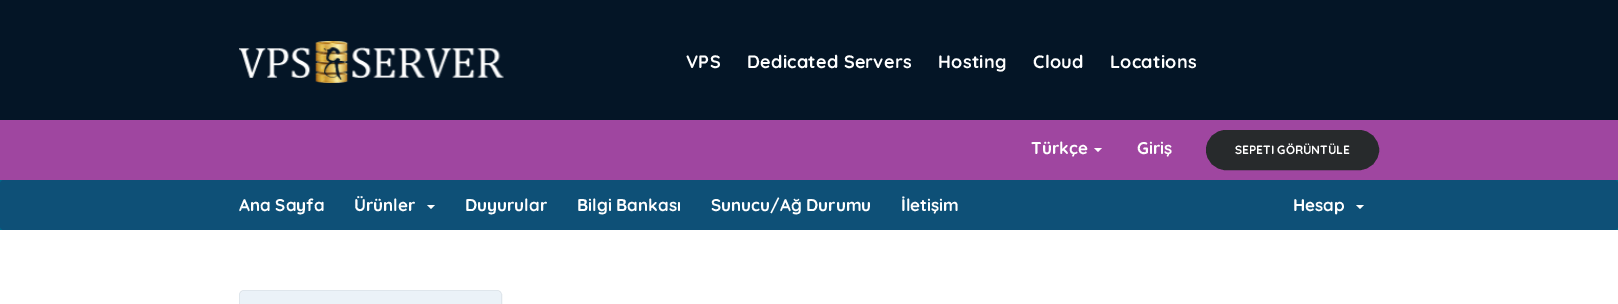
%!PS
<< /PageSize [1618 304] >> setpagedevice
/rgb { 3 { 255 div 3 1 roll } repeat setrgbcolor } def
/font { [ exch dup neg 0 0 3 -1 roll 0 0 ] selectfont } def
/text { moveto show } def
/roundrect { 5 dict begin { /r /h /w /y /x } { exch def } forall
  x r add y moveto x w add y 2 copy h add r arct x w add y h add x 1 index r arct
  x y h add x y r arct x y 2 copy exch w add exch r arct closepath end } def
/picture { 5 dict begin { /h /w /y /x /name } { exch def } forall
  gsave x y translate w h scale
  w h 8 [w 0 0 h 0 0] name (r) file false 3 colorimage grestore end } def
0 304 translate 1 -1 scale
4 setmiterlimit
255 255 255 rgb
0 0 1618 304 rectfill
4 21 38 rgb
0 0 1618 120 rectfill
(img_01.rgb) 239 41 265 42 picture
159 70 160 rgb
0 120 1618 60 rectfill
255 255 255 rgb
1094 148 moveto 8 0 rlineto -4 4 rlineto closepath fill
39 42 44 rgb
1207.5 131.5 170 37 18.5 roundrect gsave fill grestore
3 setlinewidth
stroke
0 102 135 rgb
0 180 1618 50 rectfill
14 80 119 rgb
0 180 1618 50 4 roundrect fill
255 255 255 rgb
427 205 moveto 8 0 rlineto -4 4 rlineto closepath fill
1356 205 moveto 8 0 rlineto -4 4 rlineto closepath fill
223 230 236 rgb
1 setlinewidth
239.5 290.5 262 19 4.5 roundrect stroke
235 242 248 rgb
245 291 moveto 251 0 rlineto 3 0 5 2 5 5 rcurveto 0 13 rlineto -261 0 rlineto 0 -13 rlineto 0 -3 2 -5 5 -5 rcurveto closepath fill
/Quicksand-Bold 18 font
255 255 255 rgb
686 68 moveto 0.25 0 (VPS) ashow
747 68 moveto 0.25 0 (Dedicated Servers) ashow
938 68 moveto 0.25 0 (Hosting) ashow
1033 68 moveto 0.25 0 (Cloud) ashow
1110 68 moveto 0.25 0 (Locations) ashow
/Quicksand-Bold 17 font
(Türkçe) 1031 154 text
(Giriş) 1137 154 text
/Quicksand-Bold 12 font
(SEPETI GÖRÜNTÜLE) 1235 154 text
/Quicksand-Bold 17 font
(Ana Sayfa) 239 211 text
(Ürünler) 354 211 text
(Duyurular) 465 211 text
(Bilgi Bankası) 577 211 text
(Sunucu/Ağ Durumu) 711 211 text
(İletişim) 901 211 text
(Hesap) 1293 211 text
showpage
